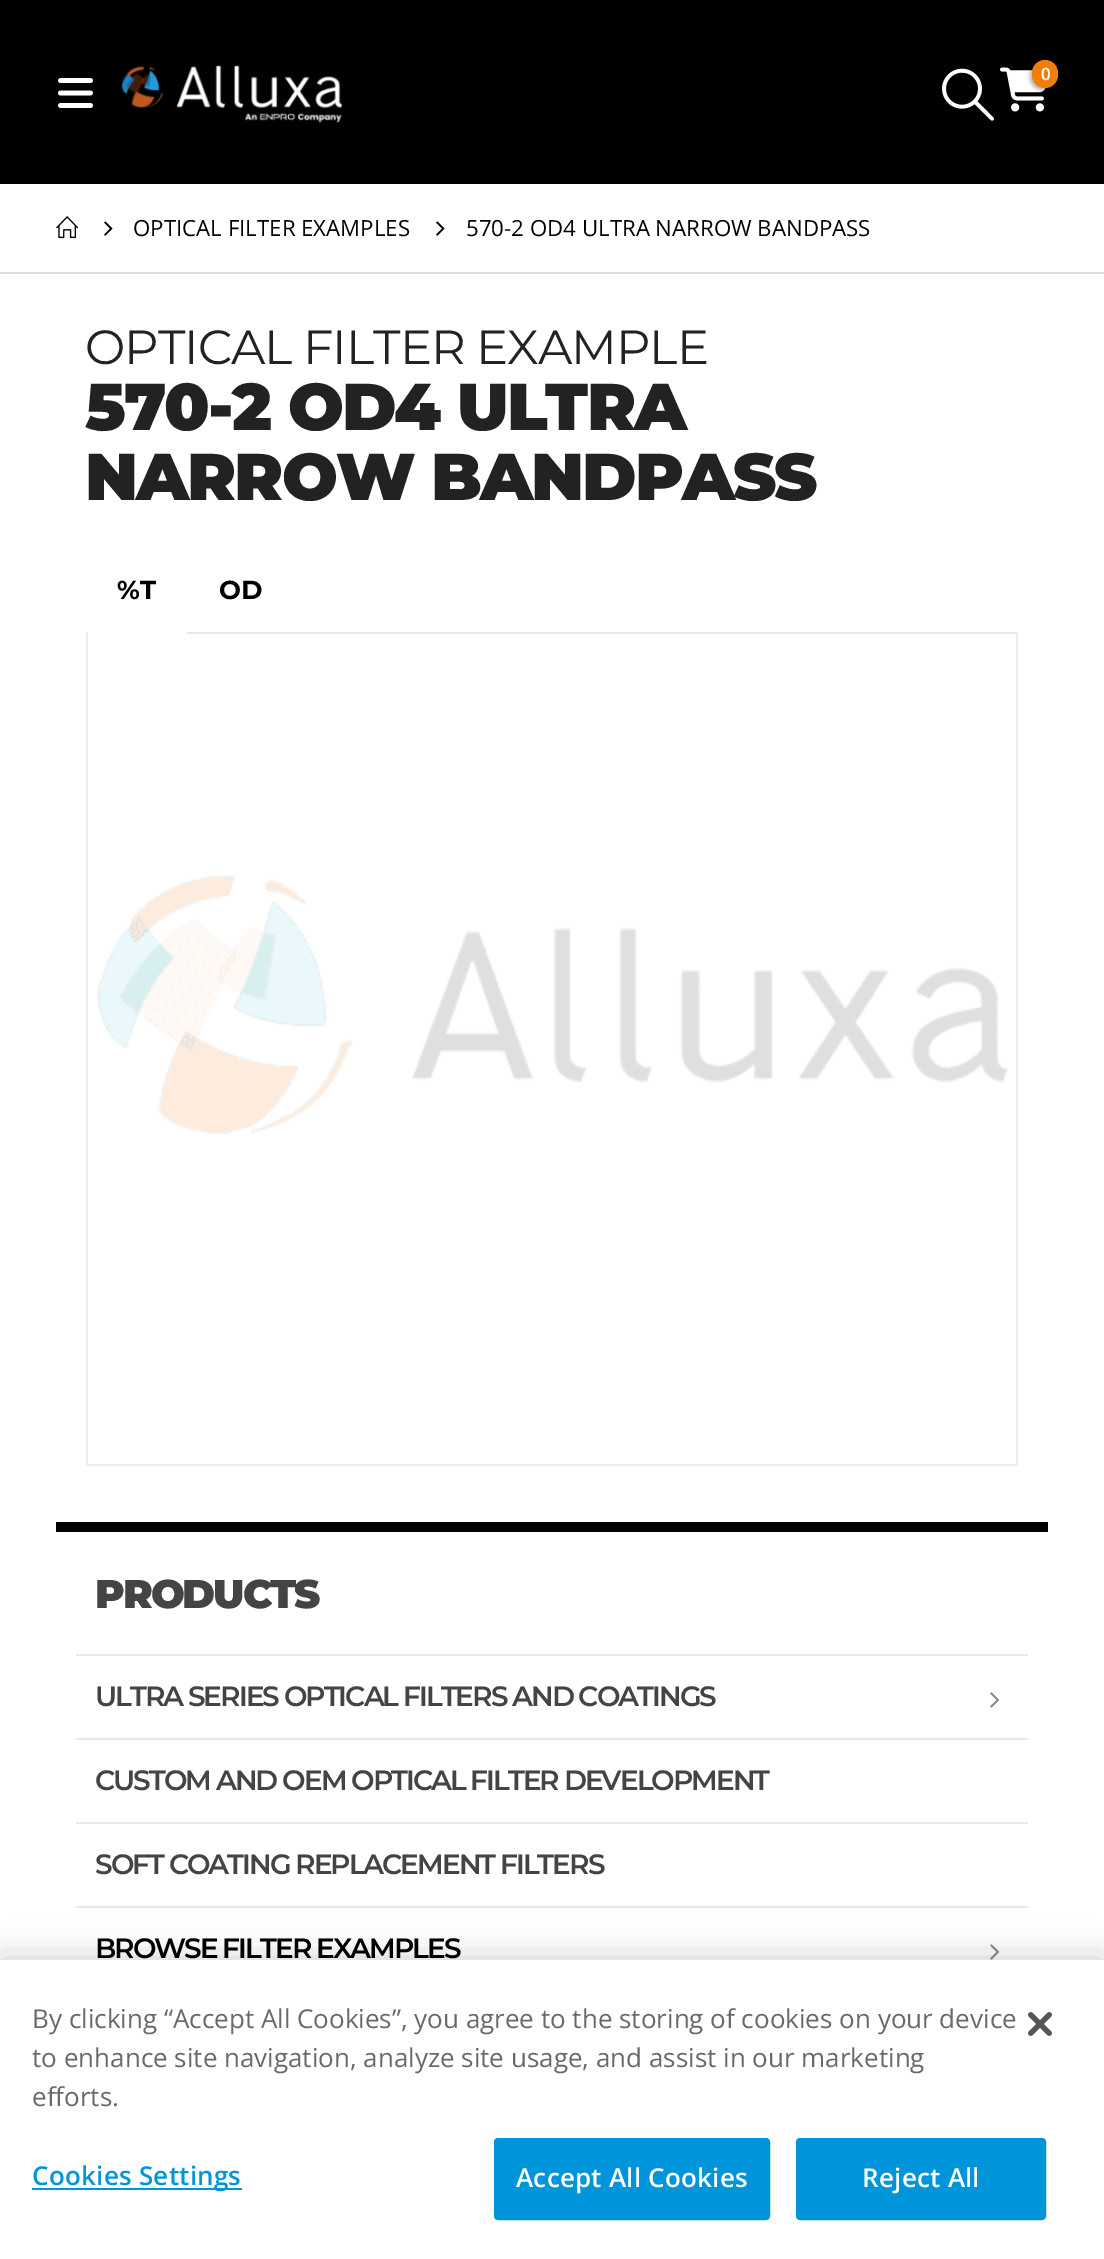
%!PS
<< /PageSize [1104 2259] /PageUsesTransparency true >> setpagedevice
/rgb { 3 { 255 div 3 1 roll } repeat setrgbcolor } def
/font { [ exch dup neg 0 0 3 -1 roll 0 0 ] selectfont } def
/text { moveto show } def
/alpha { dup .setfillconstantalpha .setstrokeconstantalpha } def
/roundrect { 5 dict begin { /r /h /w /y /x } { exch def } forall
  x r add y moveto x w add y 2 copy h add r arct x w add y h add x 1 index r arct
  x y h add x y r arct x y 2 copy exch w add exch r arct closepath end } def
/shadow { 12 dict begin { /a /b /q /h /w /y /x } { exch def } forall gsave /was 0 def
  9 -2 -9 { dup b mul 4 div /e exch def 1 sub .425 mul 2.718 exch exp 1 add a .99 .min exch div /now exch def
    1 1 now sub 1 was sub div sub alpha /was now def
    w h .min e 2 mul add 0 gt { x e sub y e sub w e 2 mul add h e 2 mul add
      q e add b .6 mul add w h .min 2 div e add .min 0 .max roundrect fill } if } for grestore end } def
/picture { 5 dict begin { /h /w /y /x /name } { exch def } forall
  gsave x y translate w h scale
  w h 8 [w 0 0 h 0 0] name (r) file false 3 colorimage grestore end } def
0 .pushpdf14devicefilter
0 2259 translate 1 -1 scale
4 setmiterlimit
255 255 255 rgb
0 0 1104 2259 rectfill
0 0 0 rgb
0 60 1104 124 rectfill
(img_04.rgb) 1000 67 46 45 picture
1030 62 26 28 13 2 0.3 shadow
0 0 1104 60 rectfill
(img_01.rgb) 58 78 35 30 picture
(img_02.rgb) 121 65 221 58 picture
(img_03.rgb) 942 68 52 53 picture
241 127 7 rgb
1032 60 26 28 13 roundrect fill
223 223 223 rgb
0 272 1104 2 rectfill
(img_05.rgb) 56 216 23 23 picture
(img_06.rgb) 104 221 9 15 picture
(img_06.rgb) 436 221 9 15 picture
231 231 231 rgb
86 632 932 2 rectfill
255 255 255 rgb
188 634 moveto -102 0 rlineto 2 -2 rlineto 98 0 rlineto closepath fill
(img_07.rgb) 97 875 911 259 picture
238 238 238 rgb
1016 634 2 832 rectfill
86 1464 932 2 rectfill
86 634 2 832 rectfill
0 0 0 rgb
56 1522 992 10 rectfill
231 231 231 rgb
76 1654 952 2 rectfill
(img_08.rgb) 990 1692 10 16 picture
76 1738 952 2 rectfill
76 1822 952 2 rectfill
76 1906 952 2 rectfill
(img_08.rgb) 990 1944 10 16 picture
0 0 0 rgb
0 1960 1104 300 0 18 0.2 shadow
255 255 255 rgb
0 1960 1104 299 rectfill
0 149 218 rgb
32 2188 210 2 rectfill
495 2139 274 80 3 roundrect gsave fill grestore
2 setlinewidth
stroke
797 2139 248 80 3 roundrect gsave fill grestore
stroke
(img_09.rgb) 1028 2012 24 24 picture
/OpenSans-SemiBold 17 font
255 255 255 rgb
(0) 1041 80 text
/OpenSans-Regular 22.25 font
0 0 0 rgb
(OPTICAL FILTER EXAMPLES) 133 236 text
(570-2 OD4 ULTRA NARROW BANDPASS) 466 236 text
/Montserrat-Regular 48 font
34 34 34 rgb
85 364 moveto -1 0 (OPTICAL FILTER EXAMPLE) ashow
/Montserrat-Black 66 font
85 430 moveto -2 0 (570-2 OD4 ULTRA) ashow
85 500 moveto -2 0 (NARROW BANDPASS) ashow
/Montserrat-Bold 26 font
0 0 0 rgb
(%T) 117 599 text
(OD) 219 599 text
/Montserrat-Black 40 font
68 68 68 rgb
95 1608 moveto -2 0 (PRODUCTS) ashow
/Montserrat-SemiBold 28 font
95 1706 moveto -2 0 (ULTRA SERIES OPTICAL FILTERS AND COATINGS) ashow
95 1790 moveto -2 0 (CUSTOM AND OEM OPTICAL FILTER DEVELOPMENT) ashow
95 1874 moveto -2 0 (SOFT COATING REPLACEMENT FILTERS) ashow
0 0 0 rgb
95 1958 moveto -2 0 (BROWSE FILTER EXAMPLES) ashow
/OpenSans-Regular 26 font
105 105 105 rgb
(By clicking “Accept All Cookies”, you agree to the storing of cookies on your device) 32 2028 text
(to enhance site navigation, analyze site usage, and assist in our marketing) 32 2067 text
(efforts.) 32 2106 text
/OpenSans-SemiBold 26 font
0 149 218 rgb
32 2185 moveto 0.25 0 (Cookies Settings) ashow
255 255 255 rgb
516 2187 moveto 0.25 0 (Accept All Cookies) ashow
862 2187 moveto 0.25 0 (Reject All) ashow
.poppdf14devicefilter showpage
